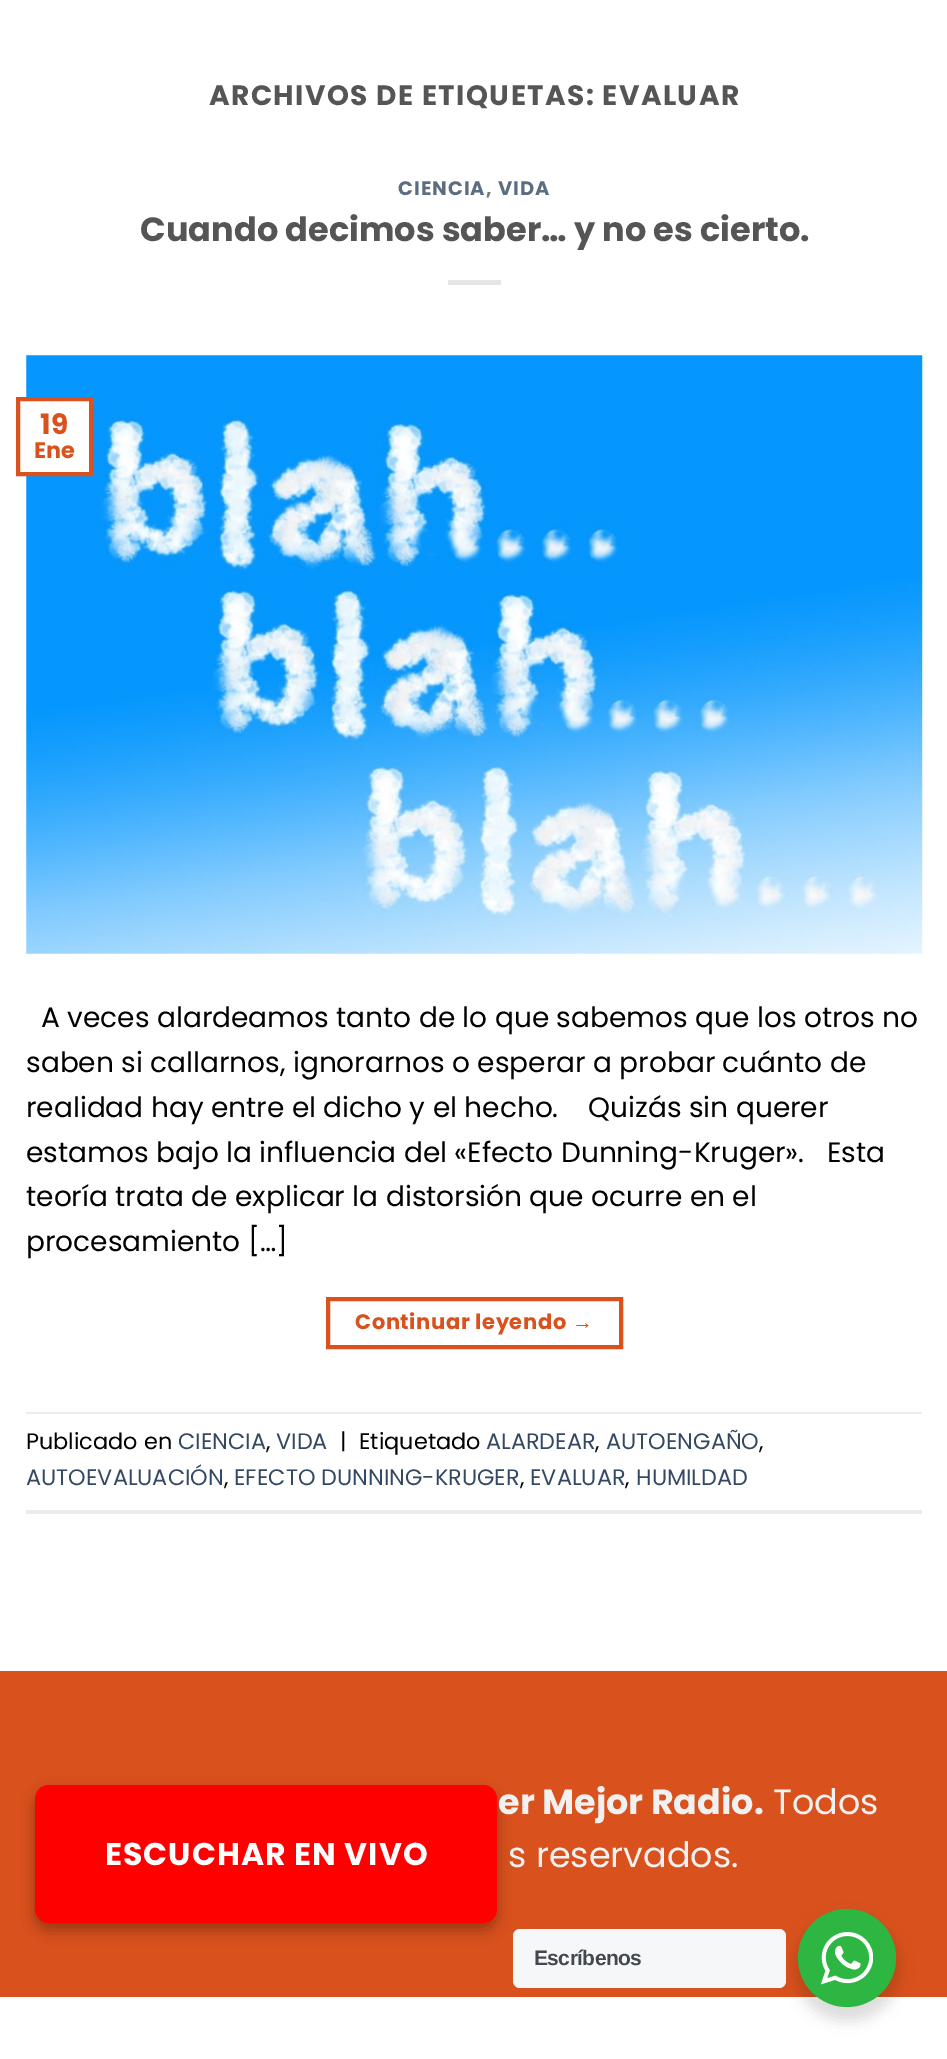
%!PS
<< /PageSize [947 2059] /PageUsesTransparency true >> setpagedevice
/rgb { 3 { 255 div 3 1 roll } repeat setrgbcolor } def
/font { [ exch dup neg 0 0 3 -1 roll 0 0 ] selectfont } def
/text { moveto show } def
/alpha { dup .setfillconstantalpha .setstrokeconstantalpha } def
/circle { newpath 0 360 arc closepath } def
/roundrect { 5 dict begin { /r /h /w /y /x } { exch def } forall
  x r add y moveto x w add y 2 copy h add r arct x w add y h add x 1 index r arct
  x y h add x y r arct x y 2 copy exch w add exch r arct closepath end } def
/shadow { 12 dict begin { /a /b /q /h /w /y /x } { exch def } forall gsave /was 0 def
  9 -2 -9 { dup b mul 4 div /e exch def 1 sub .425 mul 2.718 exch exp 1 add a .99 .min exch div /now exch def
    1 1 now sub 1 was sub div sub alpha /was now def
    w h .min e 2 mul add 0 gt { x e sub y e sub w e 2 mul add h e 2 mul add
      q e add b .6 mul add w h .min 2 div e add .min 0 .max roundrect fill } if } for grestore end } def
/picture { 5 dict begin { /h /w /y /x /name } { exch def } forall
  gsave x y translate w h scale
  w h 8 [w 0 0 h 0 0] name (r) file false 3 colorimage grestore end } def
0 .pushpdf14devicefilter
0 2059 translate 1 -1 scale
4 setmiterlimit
255 255 255 rgb
0 0 947 2059 rectfill
230 230 230 rgb
448 280 53 5 rectfill
(img_01.rgb) 26 355 897 599 picture
255 255 255 rgb
26 401 63 71 rectfill
217 81 28 rgb
4 setlinewidth
18 399 73 75 rectstroke
328 1299 293 48 rectstroke
236 236 236 rgb
26 1412 896 2 rectfill
26 1510 896 4 rectfill
217 81 28 rgb
0 1671 947 326 rectfill
0 0 0 rgb
35 1792 462 138 14 7 0.3 shadow
255 0 0 rgb
35 1785 462 138 14 roundrect fill
0 0 0 rgb
795 1916 105 105 52.5 7 0.14 shadow
245 247 249 rgb
513 1929 273 59 7 roundrect fill
45 183 66 rgb
847 1958 49 circle fill
(img_02.rgb) 821 1932 52 53 picture
/Poppins-Bold 28 font
85 85 85 rgb
209 105 moveto 1.4 0 (ARCHIVOS DE ETIQUETAS: EVALUAR) ashow
/Poppins-Bold 19.5 font
92 109 129 rgb
398 195 moveto 1 0 (CIENCIA) ashow
119 119 119 rgb
486 195 moveto 1 0 (,) ashow
92 109 129 rgb
498 195 moveto 1 0 (VIDA) ashow
/Poppins-Bold 33.6 font
85 85 85 rgb
(Cuando decimos saber… y no es cierto.) 140 241 text
/Poppins-Bold 28 font
217 81 28 rgb
(19) 40 434 text
/Poppins-Bold 22.4 font
(Ene) 34 458 text
/Poppins-Regular 28 font
0 0 0 rgb
(A veces alardeamos tanto de lo que sabemos que los otros no) 41 1027 text
(saben si callarnos, ignorarnos o esperar a probar cuánto de) 26 1072 text
(realidad hay entre el dicho y el hecho.    Quizás sin querer) 26 1117 text
(estamos bajo la influencia del «Efecto Dunning-Kruger».   Esta) 26 1162 text
(teoría trata de explicar la distorsión que ocurre en el) 26 1206 text
(procesamiento […]) 26 1251 text
/Poppins-Bold 21 font
217 81 28 rgb
355 1329 moveto 0.6 0 (Continuar leyendo) ashow
/LiberationSans-Bold 21 font
572 1329 moveto 0.6 0 (→) ashow
/Poppins-Regular 22.4 font
0 0 0 rgb
(Publicado en) 26 1449 text
51 72 98 rgb
(CIENCIA) 178 1449 text
0 0 0 rgb
(,) 266 1449 text
51 72 98 rgb
(VIDA) 276 1449 text
0 0 0 rgb
(|) 340 1449 text
(Etiquetado) 359 1449 text
51 72 98 rgb
(ALARDEAR) 486 1449 text
0 0 0 rgb
(,) 595 1449 text
51 72 98 rgb
(AUTOENGAÑO) 606 1449 text
0 0 0 rgb
(,) 759 1449 text
51 72 98 rgb
(AUTOEVALUACIÓN) 26 1485 text
0 0 0 rgb
(,) 224 1485 text
51 72 98 rgb
(EFECTO DUNNING-KRUGER) 234 1485 text
0 0 0 rgb
(,) 520 1485 text
51 72 98 rgb
(EVALUAR) 530 1485 text
0 0 0 rgb
(,) 625 1485 text
51 72 98 rgb
(HUMILDAD) 636 1485 text
/Poppins-Bold 31.5 font
255 255 255 rgb
105 1865 moveto 1 0 (ESCUCHAR EN VIVO) ashow
/Poppins-Bold 35 font
241 241 241 rgb
(er Mejor Radio.) 498 1814 text
/Poppins-Regular 35 font
(Todos) 773 1814 text
(s reservados.) 508 1867 text
/LiberationSans-Bold 21 font
67 71 78 rgb
534 1965 moveto -0.6 0 (Escríbenos) ashow
.poppdf14devicefilter showpage
